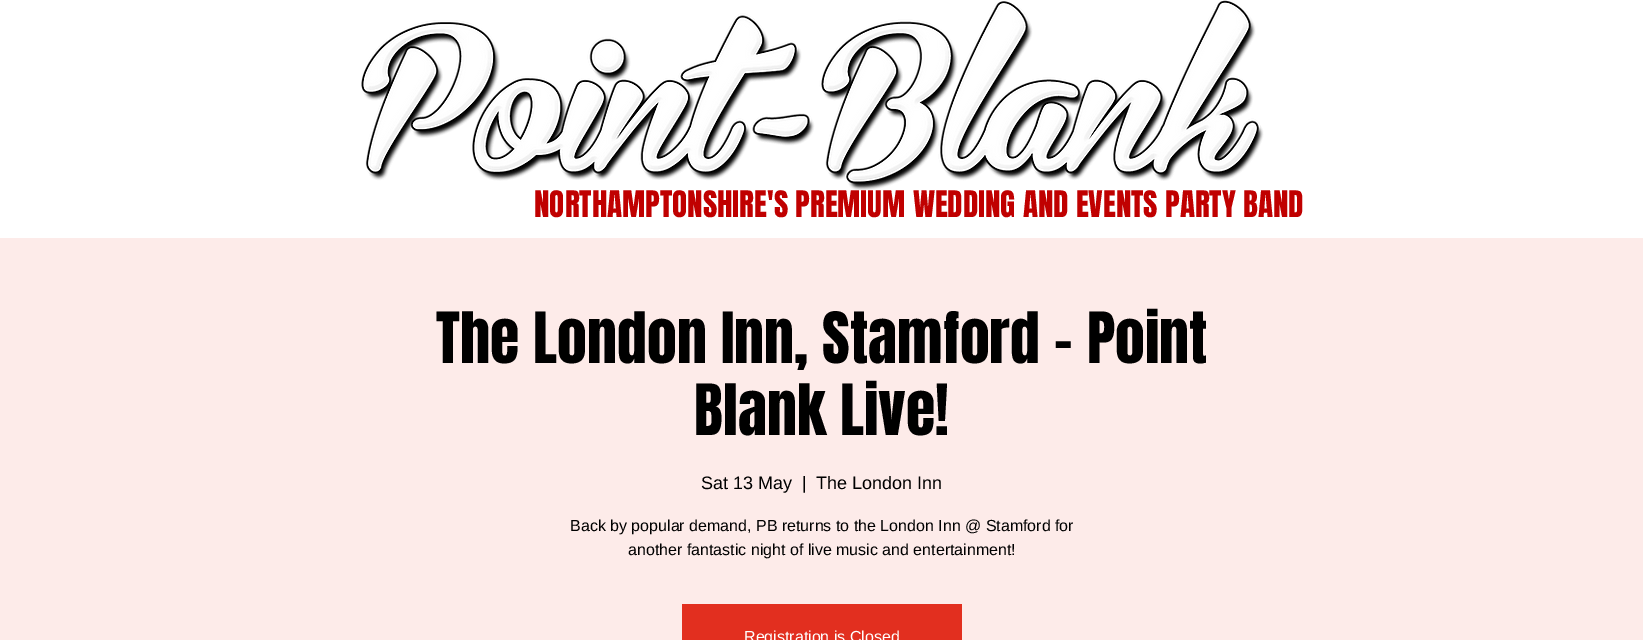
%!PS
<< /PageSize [1643 640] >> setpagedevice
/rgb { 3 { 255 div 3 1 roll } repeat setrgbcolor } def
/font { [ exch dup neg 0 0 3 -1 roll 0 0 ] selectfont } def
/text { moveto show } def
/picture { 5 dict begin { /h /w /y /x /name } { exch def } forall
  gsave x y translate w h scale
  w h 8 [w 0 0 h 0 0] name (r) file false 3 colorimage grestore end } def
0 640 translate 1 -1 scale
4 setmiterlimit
255 255 255 rgb
0 0 1643 640 rectfill
(img_01.rgb) 361 0 903 190 picture
253 235 233 rgb
0 238 1643 402 rectfill
226 47 31 rgb
682 604 280 36 rectfill
/Anton-Regular 31 font
192 0 0 rgb
(NORTHAMPTONSHIRE'S PREMIUM WEDDING AND EVENTS PARTY BAND) 534 217 text
/Anton-Regular 60 font
0 0 0 rgb
(The London Inn, Stamford - Point) 436 363 text
(Blank Live!) 694 435 text
/LiberationSans-Regular 18 font
(Sat 13 May) 701 489 text
(|) 802 489 text
(The London Inn) 816 489 text
/LiberationSans-Regular 16 font
(Back by popular demand, PB returns to the London Inn @ Stamford for) 570 531 text
(another fantastic night of live music and entertainment!) 628 555 text
255 255 255 rgb
(Registration is Closed) 744 642 text
showpage
